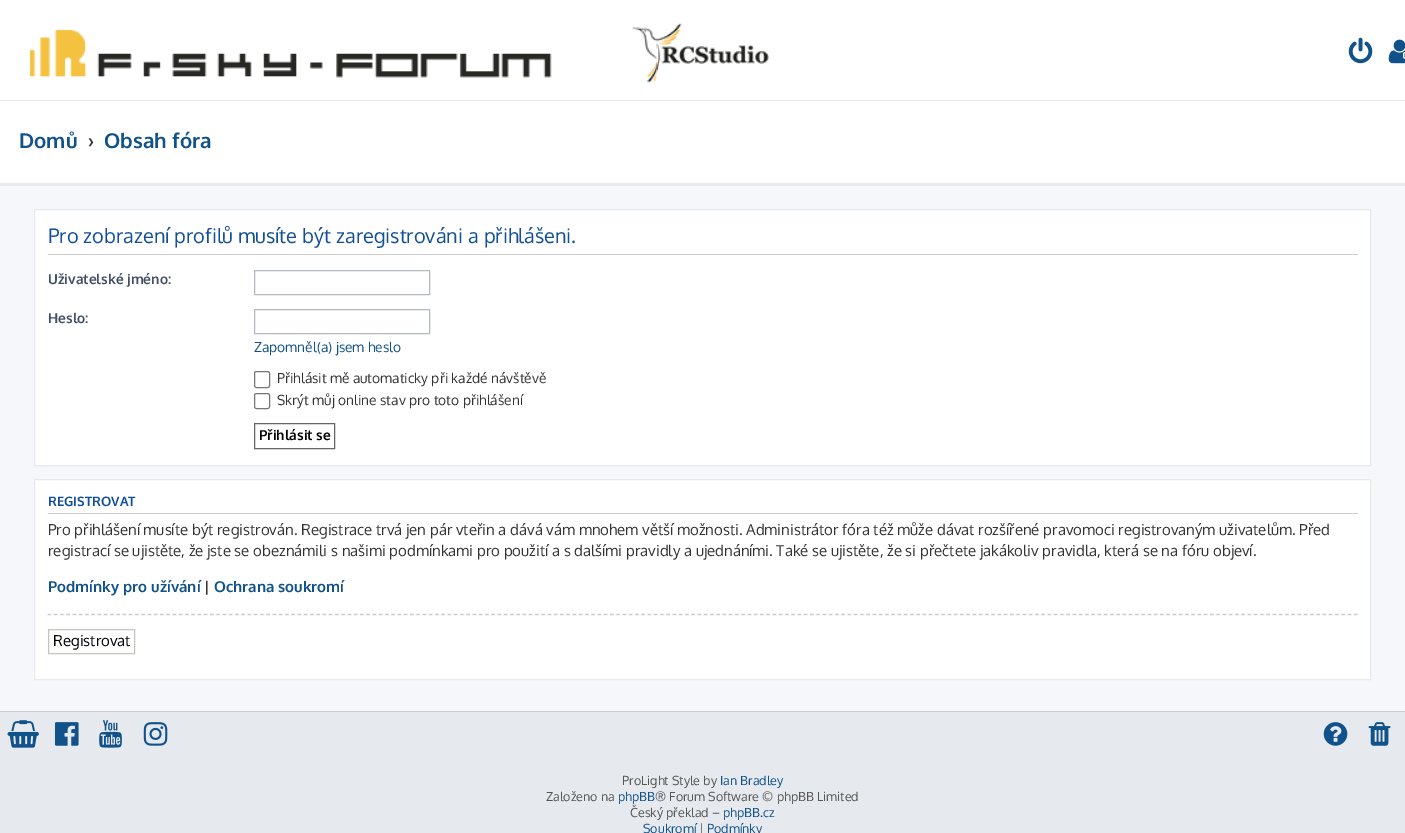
%!PS
<< /PageSize [1405 833] >> setpagedevice
/rgb { 3 { 255 div 3 1 roll } repeat setrgbcolor } def
/font { [ exch dup neg 0 0 3 -1 roll 0 0 ] selectfont } def
/text { moveto show } def
/roundrect { 5 dict begin { /r /h /w /y /x } { exch def } forall
  x r add y moveto x w add y 2 copy h add r arct x w add y h add x 1 index r arct
  x y h add x y r arct x y 2 copy exch w add exch r arct closepath end } def
/picture { 5 dict begin { /h /w /y /x /name } { exch def } forall
  gsave x y translate w h scale
  w h 8 [w 0 0 h 0 0] name (r) file false 3 colorimage grestore end } def
0 833 translate 1 -1 scale
4 setmiterlimit
245 247 250 rgb
0 0 1405 833 rectfill
255 255 255 rgb
0 0 1405 100 rectfill
230 233 237 rgb
0 100 1405 1 rectfill
(img_01.rgb) 29 23 740 60 picture
(img_02.rgb) 1348 37 25 27 picture
(img_03.rgb) 1388 39 17 25 picture
255 255 255 rgb
0 101 1405 82 rectfill
230 233 237 rgb
0 183 1405 3 rectfill
255 255 255 rgb
34.5 209.5 moveto 1336 0 rlineto 0 256 rlineto -1336 0 rlineto closepath gsave fill grestore
230 233 237 rgb
stroke
204 204 204 rgb
48 254 1310 1 rectfill
180 186 192 rgb
254.5 270.5 175 24 rectstroke
254.5 309.5 175 24 rectstroke
118 118 118 rgb
254.5 371.5 15 16 2 roundrect stroke
254.5 393.5 15 15 2 roundrect stroke
102 102 102 rgb
254.5 423.5 80 25 rectstroke
255 255 255 rgb
34.5 479.5 moveto 1336 0 rlineto 0 200 rlineto -1336 0 rlineto closepath gsave fill grestore
230 233 237 rgb
stroke
204 204 204 rgb
48 513 1310 1 rectfill
1.2 setlinewidth
[3.75 2.5] 0 setdash
47.5 614.5 moveto 1310 0 rlineto stroke
199 195 191 rgb
1 setlinewidth
[] 0 setdash
48.5 629.5 86 24 rectstroke
230 233 237 rgb
0 712 1405 121 rectfill
204 204 204 rgb
0 711 1405 1 rectfill
(img_04.rgb) 7 720 32 28 picture
(img_05.rgb) 55 722 24 24 picture
(img_06.rgb) 99 720 23 28 picture
(img_07.rgb) 143 722 25 24 picture
(img_08.rgb) 1323 722 25 24 picture
(img_09.rgb) 1368 722 23 24 picture
/Oxygen-Bold 20.5 font
16 82 137 rgb
(Domů) 19 148 text
51 51 51 rgb
(›) 88 148 text
16 82 137 rgb
(Obsah fóra) 104 148 text
/Oxygen-Regular 20 font
17 80 152 rgb
(Pro zobrazení profilů musíte být zaregistrováni a přihlášeni.) 48 243 text
/Oxygen-Bold 13.75 font
66 80 103 rgb
(Uživatelské jméno:) 48 284 text
(Heslo:) 48 323 text
/Oxygen-Regular 13.75 font
16 82 137 rgb
(Zapomněl\(a\) jsem heslo) 254 352 text
51 51 51 rgb
(Přihlásit mě automaticky při každé návštěvě) 277 383 text
(Skrýt můj online stav pro toto přihlášení) 277 405 text
/Oxygen-Bold 13.75 font
0 0 0 rgb
(Přihlásit se) 259 440 text
/Oxygen-Bold 13 font
17 80 152 rgb
(REGISTROVAT) 48 506 text
/Oxygen-Regular 15 font
51 51 51 rgb
(Pro přihlášení musíte být registrován. Registrace trvá jen pár vteřin a dává vám mnohem větší možnosti. Administrátor fóra též může dávat rozšířené pravomoci registrovaným uživatelům. Před) 48 535 text
(registrací se ujistěte, že jste se obeznámili s našimi podmínkami pro použití a s dalšími pravidly a ujednáními. Také se ujistěte, že si přečtete jakákoliv pravidla, která se na fóru objeví.) 48 556 text
/Oxygen-Bold 15 font
16 82 137 rgb
(Podmínky pro užívání) 48 592 text
51 51 51 rgb
(|) 204 592 text
16 82 137 rgb
(Ochrana soukromí) 214 592 text
/Oxygen-Regular 15 font
0 0 0 rgb
(Registrovat) 53 646 text
/Oxygen-Regular 12.5 font
85 85 85 rgb
(ProLight Style by) 622 785 text
16 82 137 rgb
(Ian Bradley) 720 785 text
85 85 85 rgb
(Založeno na) 546 801 text
16 82 137 rgb
(phpBB) 618 801 text
85 85 85 rgb
(® Forum Software © phpBB Limited) 655 801 text
(Český překlad –) 630 817 text
16 82 137 rgb
(phpBB.cz) 723 817 text
(Soukromí) 643 833 text
85 85 85 rgb
(|) 699 833 text
16 82 137 rgb
(Podmínky) 707 833 text
showpage
